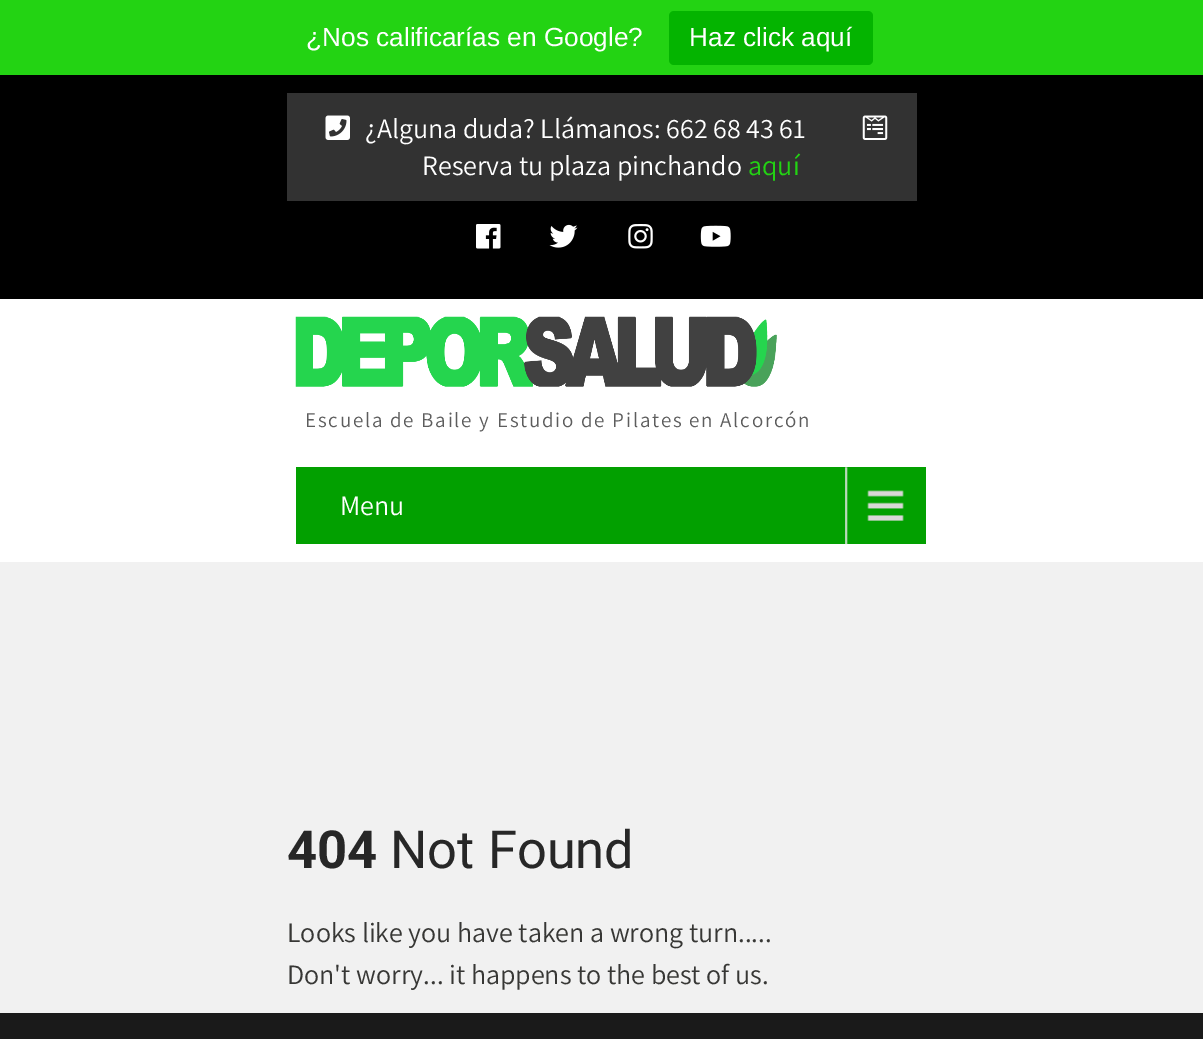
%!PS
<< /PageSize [1203 1039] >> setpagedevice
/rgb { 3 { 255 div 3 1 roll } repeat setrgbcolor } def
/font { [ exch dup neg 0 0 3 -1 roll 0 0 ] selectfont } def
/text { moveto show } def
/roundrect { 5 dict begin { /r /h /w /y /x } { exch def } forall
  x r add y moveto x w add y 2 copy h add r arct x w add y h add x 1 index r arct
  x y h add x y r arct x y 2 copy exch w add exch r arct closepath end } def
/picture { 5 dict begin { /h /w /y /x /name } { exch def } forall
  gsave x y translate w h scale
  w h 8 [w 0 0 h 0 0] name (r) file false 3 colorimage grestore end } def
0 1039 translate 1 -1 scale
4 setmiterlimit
241 241 241 rgb
0 0 1203 1039 rectfill
35 211 19 rgb
0 0 1203 75 rectfill
4 180 0 rgb
669 11 204 54 5 roundrect fill
0 0 0 rgb
0 75 1203 224 rectfill
50 50 50 rgb
287 93 630 108 rectfill
(img_01.rgb) 325 115 25 25 picture
(img_02.rgb) 862 115 26 25 picture
(img_03.rgb) 476 224 25 25 picture
(img_04.rgb) 549 224 29 24 picture
(img_05.rgb) 628 224 25 25 picture
(img_06.rgb) 700 225 31 22 picture
255 255 255 rgb
0 299 1203 263 rectfill
(img_07.rgb) 295 316 482 71 picture
2 160 0 rgb
296 467 630 77 rectfill
(img_08.rgb) 845 467 59 78 picture
26 26 26 rgb
0 1013 1203 26 rectfill
/LiberationSans-Regular 26.25 font
255 255 255 rgb
(¿Nos calificarías en Google?) 306 46 text
(Haz click aquí) 689 46 text
/Assistant-Regular 28 font
(¿Alguna duda? Llámanos: 662 68 43 61) 365 138 text
(Reserva tu plaza pinchando) 422 175 text
35 211 19 rgb
(aquí) 748 175 text
/Assistant-Regular 21 font
93 93 93 rgb
305 427 moveto 1.75 0 (Escuela de Baile y Estudio de Pilates en Alcorcón) ashow
/Assistant-Regular 28 font
255 255 255 rgb
(Menu) 340 515 text
/Roboto-Bold 52.5 font
39 39 39 rgb
(404) 287 868 text
/Roboto-Regular 52.5 font
(Not Found) 390 868 text
/Assistant-Regular 28 font
55 55 53 rgb
(Looks like you have taken a wrong turn.....) 287 942 text
(Don't worry... it happens to the best of us.) 287 984 text
showpage
